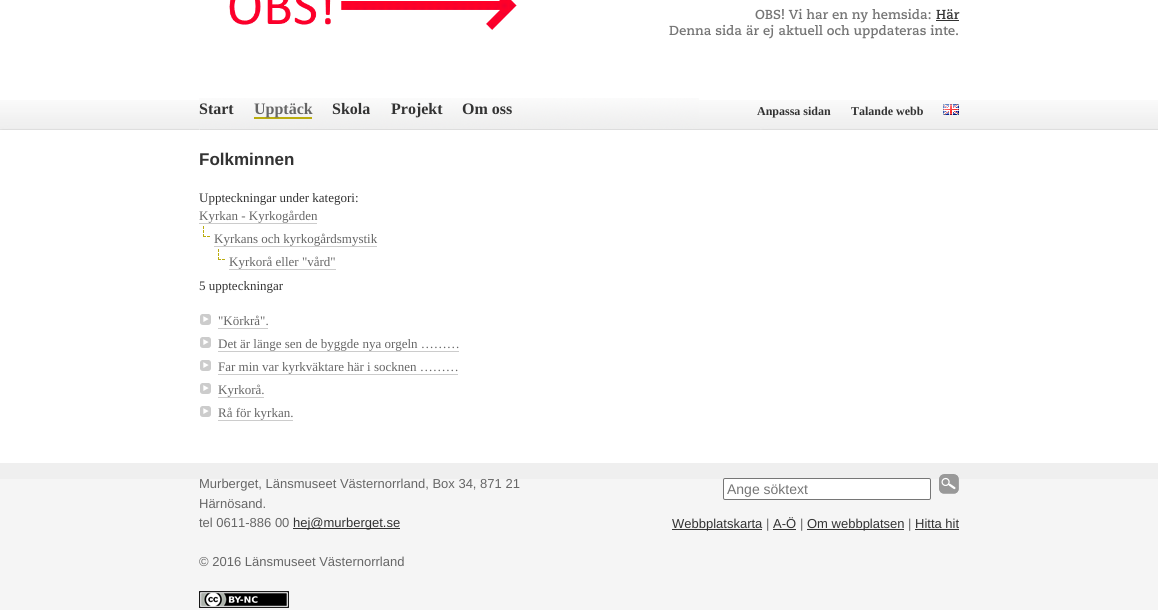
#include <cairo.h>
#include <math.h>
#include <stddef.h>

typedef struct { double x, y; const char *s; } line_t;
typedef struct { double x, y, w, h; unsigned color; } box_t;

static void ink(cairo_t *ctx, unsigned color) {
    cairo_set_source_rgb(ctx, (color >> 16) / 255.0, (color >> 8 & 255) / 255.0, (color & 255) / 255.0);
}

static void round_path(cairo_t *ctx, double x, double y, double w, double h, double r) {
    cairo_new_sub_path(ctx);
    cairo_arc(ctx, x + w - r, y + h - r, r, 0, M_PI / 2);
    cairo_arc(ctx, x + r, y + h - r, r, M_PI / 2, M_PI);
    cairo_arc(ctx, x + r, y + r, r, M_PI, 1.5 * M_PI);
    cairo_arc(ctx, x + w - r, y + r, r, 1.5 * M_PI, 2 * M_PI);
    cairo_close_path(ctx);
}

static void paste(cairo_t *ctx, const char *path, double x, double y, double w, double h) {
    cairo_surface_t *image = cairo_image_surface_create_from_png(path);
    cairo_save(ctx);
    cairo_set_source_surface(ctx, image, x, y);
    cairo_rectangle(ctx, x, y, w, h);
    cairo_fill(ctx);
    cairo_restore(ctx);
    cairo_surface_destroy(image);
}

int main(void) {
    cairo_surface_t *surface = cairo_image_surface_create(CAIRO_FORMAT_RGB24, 1158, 610);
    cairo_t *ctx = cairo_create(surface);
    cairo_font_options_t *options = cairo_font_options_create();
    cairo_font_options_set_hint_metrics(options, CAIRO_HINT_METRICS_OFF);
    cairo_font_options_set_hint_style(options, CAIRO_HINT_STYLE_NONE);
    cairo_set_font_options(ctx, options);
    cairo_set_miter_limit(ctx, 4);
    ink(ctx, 0xFFFFFF);
    cairo_paint(ctx);
    paste(ctx, "media/1.png", 0, 100, 1158, 30);
    paste(ctx, "media/2.png", 229, 0, 288, 30);
    paste(ctx, "media/3.png", 755, 8, 176, 15);
    paste(ctx, "media/4.png", 936, 9, 24, 11);
    ink(ctx, 0x333333);
    cairo_rectangle(ctx, 936, 20, 23, 1);
    cairo_fill(ctx);
    paste(ctx, "media/5.png", 669, 24, 289, 15);
    paste(ctx, "media/6.png", 199, 98, 500, 32);
    cairo_select_font_face(ctx, "Liberation Serif", CAIRO_FONT_SLANT_NORMAL, CAIRO_FONT_WEIGHT_BOLD);
    cairo_set_font_size(ctx, 16);
    cairo_move_to(ctx, 199, 114);
    cairo_show_text(ctx, "Start");
    ink(ctx, 0xBAAD0E);
    cairo_rectangle(ctx, 254, 117, 58, 2);
    cairo_fill(ctx);
    ink(ctx, 0x666666);
    cairo_move_to(ctx, 254, 114);
    cairo_show_text(ctx, "Upptäck");
    ink(ctx, 0x333333);
    {
        static const line_t items[] = {
            {332, 114, "Skola"},
            {391, 114, "Projekt"},
            {462, 114, "Om oss"},
        };
        for (size_t i = 0; i < sizeof items / sizeof *items; i++) {
            cairo_move_to(ctx, items[i].x, items[i].y);
            cairo_show_text(ctx, items[i].s);
        }
    }
    cairo_set_font_size(ctx, 12);
    cairo_move_to(ctx, 757, 115);
    cairo_show_text(ctx, "Anpassa sidan");
    cairo_move_to(ctx, 851, 115);
    cairo_show_text(ctx, "Talande webb");
    paste(ctx, "media/7.png", 943, 104, 16, 11);
    cairo_select_font_face(ctx, "Liberation Sans", CAIRO_FONT_SLANT_NORMAL, CAIRO_FONT_WEIGHT_BOLD);
    cairo_set_font_size(ctx, 17);
    cairo_move_to(ctx, 199, 165);
    cairo_show_text(ctx, "Folkminnen");
    cairo_select_font_face(ctx, "Liberation Serif", CAIRO_FONT_SLANT_NORMAL, CAIRO_FONT_WEIGHT_NORMAL);
    cairo_set_font_size(ctx, 13);
    cairo_move_to(ctx, 199, 202);
    cairo_show_text(ctx, "Uppteckningar under kategori:");
    ink(ctx, 0x666666);
    cairo_move_to(ctx, 199, 220);
    cairo_show_text(ctx, "Kyrkan - Kyrkogården");
    ink(ctx, 0xCCCCCC);
    cairo_rectangle(ctx, 199, 223, 118, 1);
    cairo_fill(ctx);
    paste(ctx, "media/8.png", 203, 226, 7, 11);
    ink(ctx, 0x666666);
    cairo_move_to(ctx, 214, 243);
    cairo_show_text(ctx, "Kyrkans och kyrkogårdsmystik");
    ink(ctx, 0xCCCCCC);
    cairo_rectangle(ctx, 214, 246, 163, 1);
    cairo_fill(ctx);
    paste(ctx, "media/8.png", 218, 249, 7, 11);
    ink(ctx, 0x666666);
    cairo_move_to(ctx, 229, 266);
    cairo_show_text(ctx, "Kyrkorå eller \"vård\"");
    ink(ctx, 0xCCCCCC);
    cairo_rectangle(ctx, 229, 269, 107, 1);
    cairo_fill(ctx);
    ink(ctx, 0x333333);
    cairo_move_to(ctx, 199, 290);
    cairo_show_text(ctx, "5 uppteckningar");
    paste(ctx, "media/9.png", 200, 314, 11, 11);
    ink(ctx, 0x666666);
    cairo_move_to(ctx, 218, 325);
    cairo_show_text(ctx, "\"Körkrå\".");
    ink(ctx, 0xCCCCCC);
    cairo_rectangle(ctx, 218, 328, 50, 1);
    cairo_fill(ctx);
    paste(ctx, "media/9.png", 200, 337, 11, 11);
    ink(ctx, 0x666666);
    cairo_move_to(ctx, 218, 348);
    cairo_show_text(ctx, "Det är länge sen de byggde nya orgeln ………");
    ink(ctx, 0xCCCCCC);
    cairo_rectangle(ctx, 218, 351, 241, 1);
    cairo_fill(ctx);
    paste(ctx, "media/9.png", 200, 360, 11, 11);
    ink(ctx, 0x666666);
    cairo_move_to(ctx, 218, 371);
    cairo_show_text(ctx, "Far min var kyrkväktare här i socknen ………");
    ink(ctx, 0xCCCCCC);
    cairo_rectangle(ctx, 218, 374, 240, 1);
    cairo_fill(ctx);
    paste(ctx, "media/9.png", 200, 383, 11, 11);
    ink(ctx, 0x666666);
    cairo_move_to(ctx, 218, 394);
    cairo_show_text(ctx, "Kyrkorå.");
    ink(ctx, 0xCCCCCC);
    cairo_rectangle(ctx, 218, 397, 46, 1);
    cairo_fill(ctx);
    paste(ctx, "media/9.png", 200, 406, 11, 11);
    ink(ctx, 0x666666);
    cairo_move_to(ctx, 218, 417);
    cairo_show_text(ctx, "Rå för kyrkan.");
    {
        static const box_t items[] = {
            {218, 420, 75, 1, 0xCCCCCC},
            {0, 479, 1158, 131, 0xF5F5F5},
            {0, 463, 1158, 16, 0xEFEFEF},
        };
        for (size_t i = 0; i < sizeof items / sizeof *items; i++) {
            ink(ctx, items[i].color);
            cairo_rectangle(ctx, items[i].x, items[i].y, items[i].w, items[i].h);
            cairo_fill(ctx);
        }
    }
    cairo_select_font_face(ctx, "Liberation Sans", CAIRO_FONT_SLANT_NORMAL, CAIRO_FONT_WEIGHT_NORMAL);
    ink(ctx, 0x666666);
    {
        static const line_t items[] = {
            {199, 488, "Murberget, Länsmuseet Västernorrland, Box 34, 871 21"},
            {199, 508, "Härnösand."},
            {199, 527, "tel 0611-886 00"},
        };
        for (size_t i = 0; i < sizeof items / sizeof *items; i++) {
            cairo_move_to(ctx, items[i].x, items[i].y);
            cairo_show_text(ctx, items[i].s);
        }
    }
    ink(ctx, 0x333333);
    cairo_rectangle(ctx, 293, 528, 107, 1);
    cairo_fill(ctx);
    cairo_move_to(ctx, 293, 527);
    cairo_show_text(ctx, "hej@murberget.se");
    ink(ctx, 0x666666);
    cairo_move_to(ctx, 199, 566);
    cairo_show_text(ctx, "© 2016 Länsmuseet Västernorrland");
    paste(ctx, "media/10.png", 199, 591, 90, 17);
    ink(ctx, 0xFFFFFF);
    round_path(ctx, 723.5, 478.5, 207, 21, 1.5);
    cairo_fill_preserve(ctx);
    ink(ctx, 0x767676);
    cairo_set_line_width(ctx, 1);
    cairo_stroke(ctx);
    cairo_set_font_size(ctx, 14);
    ink(ctx, 0x757575);
    cairo_move_to(ctx, 727, 494);
    cairo_show_text(ctx, "Ange söktext");
    paste(ctx, "media/11.png", 939, 474, 20, 20);
    ink(ctx, 0x333333);
    cairo_rectangle(ctx, 672, 529, 90, 1);
    cairo_fill(ctx);
    cairo_set_font_size(ctx, 13);
    cairo_move_to(ctx, 672, 528);
    cairo_show_text(ctx, "Webbplatskarta");
    ink(ctx, 0x666666);
    cairo_move_to(ctx, 766, 528);
    cairo_show_text(ctx, "|");
    ink(ctx, 0x333333);
    cairo_move_to(ctx, 773, 528);
    cairo_show_text(ctx, "A-Ö");
    cairo_rectangle(ctx, 773, 529, 23, 1);
    cairo_fill(ctx);
    ink(ctx, 0x666666);
    cairo_move_to(ctx, 800, 528);
    cairo_show_text(ctx, "|");
    ink(ctx, 0x333333);
    cairo_rectangle(ctx, 807, 529, 97, 1);
    cairo_fill(ctx);
    cairo_move_to(ctx, 807, 528);
    cairo_show_text(ctx, "Om webbplatsen");
    ink(ctx, 0x666666);
    cairo_move_to(ctx, 908, 528);
    cairo_show_text(ctx, "|");
    ink(ctx, 0x333333);
    cairo_move_to(ctx, 915, 528);
    cairo_show_text(ctx, "Hitta hit");
    cairo_rectangle(ctx, 915, 529, 44, 1);
    cairo_fill(ctx);
    cairo_surface_write_to_png(surface, "image.png");
    cairo_font_options_destroy(options);
    cairo_destroy(ctx);
    cairo_surface_destroy(surface);
    return 0;
}
